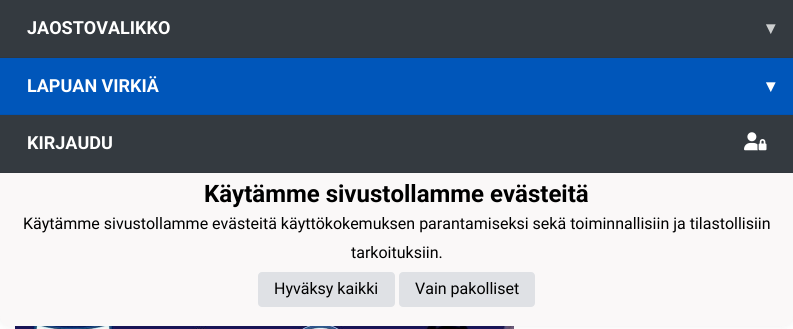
#include <cairo.h>
#include <math.h>
#include <stddef.h>


static void ink(cairo_t *ctx, unsigned color) {
    cairo_set_source_rgb(ctx, (color >> 16) / 255.0, (color >> 8 & 255) / 255.0, (color & 255) / 255.0);
}

static void round_path(cairo_t *ctx, double x, double y, double w, double h, double r) {
    cairo_new_sub_path(ctx);
    cairo_arc(ctx, x + w - r, y + h - r, r, 0, M_PI / 2);
    cairo_arc(ctx, x + r, y + h - r, r, M_PI / 2, M_PI);
    cairo_arc(ctx, x + r, y + r, r, M_PI, 1.5 * M_PI);
    cairo_arc(ctx, x + w - r, y + r, r, 1.5 * M_PI, 2 * M_PI);
    cairo_close_path(ctx);
}

static void blur_box(cairo_t *ctx, double x, double y, double w, double h, double r, double blur, double alpha) {
    cairo_push_group_with_content(ctx, CAIRO_CONTENT_ALPHA);
    cairo_set_operator(ctx, CAIRO_OPERATOR_SOURCE);
    for (int i = 15; i >= -15 && fmin(w, h) + blur * i / 3 > 0; i -= 2) {
        double e = blur * i / 6;
        cairo_set_source_rgba(ctx, 0, 0, 0, alpha * erfc((i - 1) / 8.5) / 2);
        round_path(ctx, x - e, y - e, w + 2 * e, h + 2 * e, fmax(0, fmin(r + e + blur * .6, fmin(w, h) / 2 + e)));
        cairo_fill(ctx);
    }
    cairo_pattern_t *soft = cairo_pop_group(ctx);
    cairo_mask(ctx, soft);
    cairo_pattern_destroy(soft);
}

static void paste(cairo_t *ctx, const char *path, double x, double y, double w, double h) {
    cairo_surface_t *image = cairo_image_surface_create_from_png(path);
    cairo_save(ctx);
    cairo_set_source_surface(ctx, image, x, y);
    cairo_rectangle(ctx, x, y, w, h);
    cairo_fill(ctx);
    cairo_restore(ctx);
    cairo_surface_destroy(image);
}

int main(void) {
    cairo_surface_t *surface = cairo_image_surface_create(CAIRO_FORMAT_RGB24, 793, 329);
    cairo_t *ctx = cairo_create(surface);
    cairo_font_options_t *options = cairo_font_options_create();
    cairo_font_options_set_hint_metrics(options, CAIRO_HINT_METRICS_OFF);
    cairo_font_options_set_hint_style(options, CAIRO_HINT_STYLE_NONE);
    cairo_set_font_options(ctx, options);
    cairo_set_miter_limit(ctx, 4);
    ink(ctx, 0xFFFFFF);
    cairo_paint(ctx);
    ink(ctx, 0x343A40);
    cairo_rectangle(ctx, 0, 0, 793, 57);
    cairo_fill(ctx);
    ink(ctx, 0x31373D);
    cairo_rectangle(ctx, 0, 57, 793, 1);
    cairo_fill(ctx);
    cairo_select_font_face(ctx, "Roboto", CAIRO_FONT_SLANT_NORMAL, CAIRO_FONT_WEIGHT_BOLD);
    cairo_set_font_size(ctx, 18);
    ink(ctx, 0xFFFFFF);
    cairo_move_to(ctx, 27, 34);
    cairo_show_text(ctx, "JAOSTOVALIKKO");
    cairo_select_font_face(ctx, "DejaVu Sans", CAIRO_FONT_SLANT_NORMAL, CAIRO_FONT_WEIGHT_BOLD);
    ink(ctx, 0xCCCECF);
    cairo_move_to(ctx, 766, 34);
    cairo_show_text(ctx, "▾");
    ink(ctx, 0x0056BA);
    cairo_rectangle(ctx, 0, 58, 793, 56);
    cairo_fill(ctx);
    ink(ctx, 0x0052B1);
    cairo_rectangle(ctx, 0, 114, 793, 1);
    cairo_fill(ctx);
    cairo_select_font_face(ctx, "Roboto", CAIRO_FONT_SLANT_NORMAL, CAIRO_FONT_WEIGHT_BOLD);
    ink(ctx, 0xFFFFFF);
    cairo_move_to(ctx, 27, 92);
    cairo_show_text(ctx, "LAPUAN VIRKIÄ");
    cairo_select_font_face(ctx, "DejaVu Sans", CAIRO_FONT_SLANT_NORMAL, CAIRO_FONT_WEIGHT_BOLD);
    cairo_move_to(ctx, 766, 92);
    cairo_show_text(ctx, "▾");
    paste(ctx, "media/2.png", 15, 326, 499, 3);
    ink(ctx, 0x000000);
    blur_box(ctx, 0, 163, 793, 161, 10, 5, 0.1);
    ink(ctx, 0xFAF8F8);
    round_path(ctx, 0, 165, 793, 161, 10);
    cairo_fill(ctx);
    ink(ctx, 0x343A40);
    cairo_rectangle(ctx, 0, 115, 793, 57);
    cairo_fill(ctx);
    ink(ctx, 0x31373D);
    cairo_rectangle(ctx, 0, 172, 793, 1);
    cairo_fill(ctx);
    cairo_select_font_face(ctx, "Roboto", CAIRO_FONT_SLANT_NORMAL, CAIRO_FONT_WEIGHT_BOLD);
    ink(ctx, 0xFFFFFF);
    cairo_move_to(ctx, 27, 149);
    cairo_show_text(ctx, "KIRJAUDU");
    paste(ctx, "media/1.png", 744, 132, 23, 19);
    cairo_set_font_size(ctx, 24);
    ink(ctx, 0x000000);
    cairo_move_to(ctx, 204, 202);
    cairo_show_text(ctx, "Käytämme sivustollamme evästeitä");
    cairo_select_font_face(ctx, "Roboto", CAIRO_FONT_SLANT_NORMAL, CAIRO_FONT_WEIGHT_NORMAL);
    cairo_set_font_size(ctx, 16);
    cairo_move_to(ctx, 23, 229);
    cairo_show_text(ctx, "Käytämme sivustollamme evästeitä käyttökokemuksen parantamiseksi sekä toiminnallisiin ja tilastollisiin");
    cairo_move_to(ctx, 351, 258);
    cairo_show_text(ctx, "tarkoituksiin.");
    ink(ctx, 0xDFE1E5);
    round_path(ctx, 258, 272, 137, 35, 4);
    cairo_fill(ctx);
    ink(ctx, 0x000000);
    cairo_move_to(ctx, 274, 294);
    cairo_show_text(ctx, "Hyväksy kaikki");
    ink(ctx, 0xDFE1E5);
    round_path(ctx, 399, 272, 136, 35, 4);
    cairo_fill(ctx);
    ink(ctx, 0x000000);
    cairo_move_to(ctx, 415, 294);
    cairo_show_text(ctx, "Vain pakolliset");
    cairo_surface_write_to_png(surface, "image.png");
    cairo_font_options_destroy(options);
    cairo_destroy(ctx);
    cairo_surface_destroy(surface);
    return 0;
}
